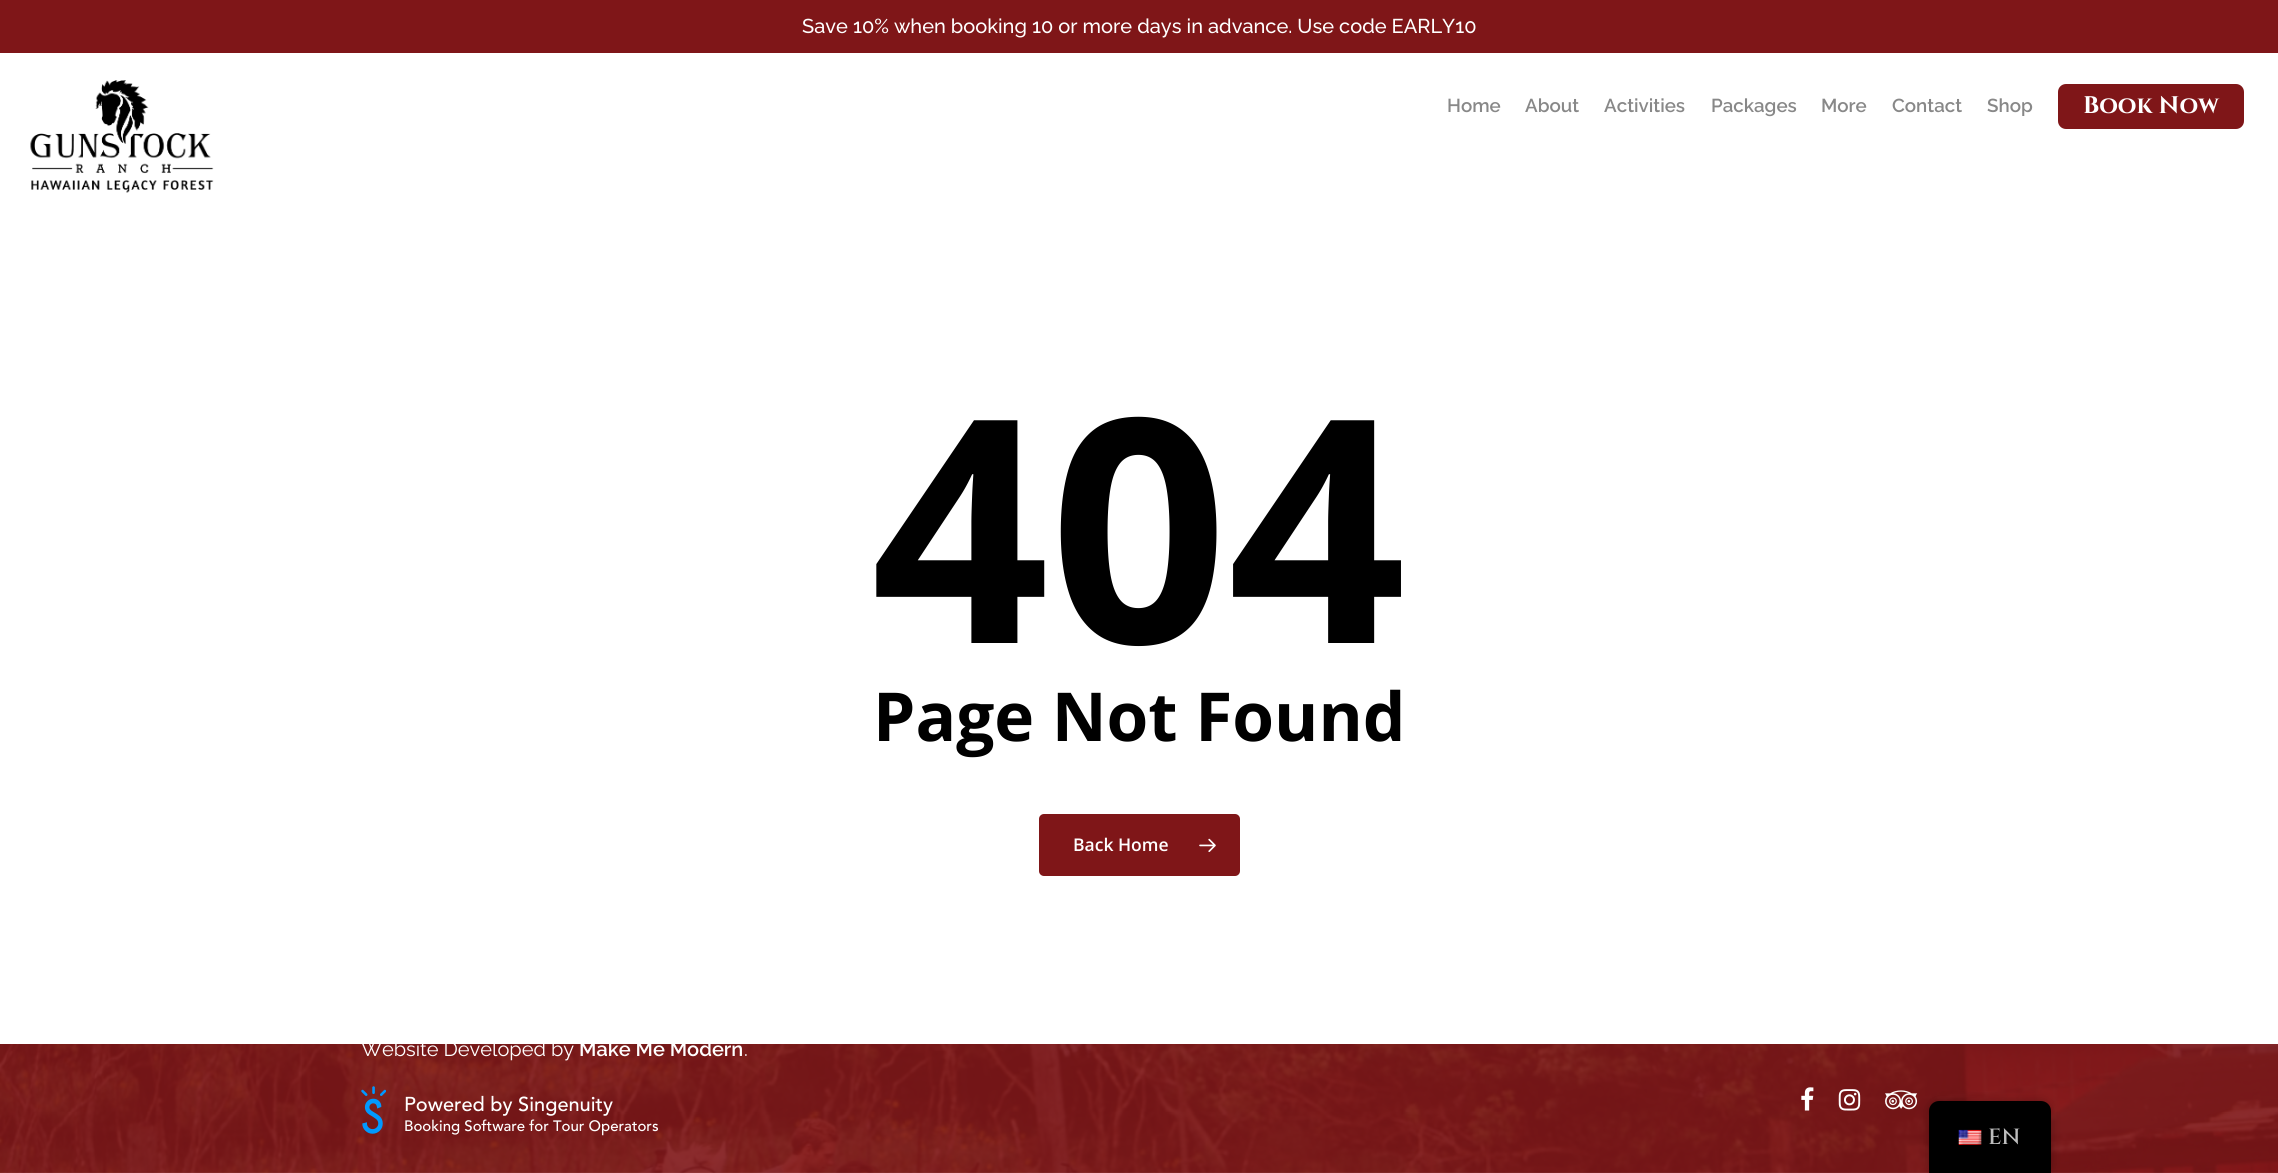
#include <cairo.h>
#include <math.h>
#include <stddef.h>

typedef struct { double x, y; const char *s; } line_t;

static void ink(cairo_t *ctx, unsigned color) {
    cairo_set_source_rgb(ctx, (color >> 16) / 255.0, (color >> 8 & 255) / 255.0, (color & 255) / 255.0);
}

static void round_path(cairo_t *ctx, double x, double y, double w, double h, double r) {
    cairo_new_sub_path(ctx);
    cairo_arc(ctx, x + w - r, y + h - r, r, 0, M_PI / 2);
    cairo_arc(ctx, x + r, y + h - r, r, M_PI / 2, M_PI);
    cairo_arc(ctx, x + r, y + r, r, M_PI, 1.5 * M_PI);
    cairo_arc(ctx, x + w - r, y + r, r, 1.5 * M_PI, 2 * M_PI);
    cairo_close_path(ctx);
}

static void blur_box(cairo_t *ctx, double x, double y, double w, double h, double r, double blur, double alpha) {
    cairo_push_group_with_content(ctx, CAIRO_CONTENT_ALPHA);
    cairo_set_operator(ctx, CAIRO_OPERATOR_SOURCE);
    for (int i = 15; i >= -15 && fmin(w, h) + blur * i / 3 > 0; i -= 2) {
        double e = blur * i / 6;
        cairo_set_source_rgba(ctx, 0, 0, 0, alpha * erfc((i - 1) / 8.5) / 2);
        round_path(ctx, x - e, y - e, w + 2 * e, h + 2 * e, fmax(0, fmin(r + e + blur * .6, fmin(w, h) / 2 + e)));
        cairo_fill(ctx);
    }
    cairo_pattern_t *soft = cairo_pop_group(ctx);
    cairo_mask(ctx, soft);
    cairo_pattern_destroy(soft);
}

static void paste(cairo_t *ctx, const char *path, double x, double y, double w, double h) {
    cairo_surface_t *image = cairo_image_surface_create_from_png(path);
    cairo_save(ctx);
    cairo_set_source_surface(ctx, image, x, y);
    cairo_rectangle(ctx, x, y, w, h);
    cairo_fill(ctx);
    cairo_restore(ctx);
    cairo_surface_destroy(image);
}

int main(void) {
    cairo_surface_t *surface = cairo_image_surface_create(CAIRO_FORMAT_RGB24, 2278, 1173);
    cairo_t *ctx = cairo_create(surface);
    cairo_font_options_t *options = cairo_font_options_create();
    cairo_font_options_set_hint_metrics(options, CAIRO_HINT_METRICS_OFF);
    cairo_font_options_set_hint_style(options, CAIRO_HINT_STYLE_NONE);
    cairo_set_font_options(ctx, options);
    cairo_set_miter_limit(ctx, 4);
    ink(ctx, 0xFFFFFF);
    cairo_paint(ctx);
    ink(ctx, 0x7F1618);
    cairo_rectangle(ctx, 0, 0, 2278, 53);
    cairo_fill(ctx);
    cairo_select_font_face(ctx, "Raleway Medium", CAIRO_FONT_SLANT_NORMAL, CAIRO_FONT_WEIGHT_NORMAL);
    cairo_set_font_size(ctx, 20);
    ink(ctx, 0xFFFFFF);
    cairo_move_to(ctx, 802, 33);
    cairo_show_text(ctx, "Save 10% when booking 10 or more days in advance. Use code EARLY10");
    paste(ctx, "media/1.png", 30, 80, 184, 113);
    cairo_select_font_face(ctx, "Raleway SemiBold", CAIRO_FONT_SLANT_NORMAL, CAIRO_FONT_WEIGHT_NORMAL);
    cairo_set_font_size(ctx, 18.75);
    ink(ctx, 0x888888);
    {
        static const line_t items[] = {
            {1447, 112, "Home"},
            {1525, 112, "About"},
            {1604, 112, "Activities"},
            {1711, 112, "Packages"},
            {1821, 112, "More"},
            {1892, 112, "Contact"},
            {1987, 112, "Shop"},
        };
        for (size_t i = 0; i < sizeof items / sizeof *items; i++) {
            cairo_move_to(ctx, items[i].x, items[i].y);
            cairo_show_text(ctx, items[i].s);
        }
    }
    ink(ctx, 0x7F1618);
    round_path(ctx, 2058, 84, 186, 45, 8);
    cairo_fill(ctx);
    cairo_select_font_face(ctx, "Cinzel", CAIRO_FONT_SLANT_NORMAL, CAIRO_FONT_WEIGHT_BOLD);
    cairo_set_font_size(ctx, 24);
    ink(ctx, 0xFFFFFF);
    cairo_move_to(ctx, 2083, 113);
    cairo_show_text(ctx, "Book Now");
    cairo_select_font_face(ctx, "Open Sans", CAIRO_FONT_SLANT_NORMAL, CAIRO_FONT_WEIGHT_BOLD);
    cairo_set_font_size(ctx, 312);
    ink(ctx, 0x000000);
    cairo_move_to(ctx, 871, 643);
    cairo_show_text(ctx, "404");
    cairo_set_font_size(ctx, 67.5);
    cairo_move_to(ctx, 873, 741);
    cairo_show_text(ctx, "Page Not Found");
    ink(ctx, 0x7F1618);
    round_path(ctx, 1039, 814, 201, 62, 5);
    cairo_fill(ctx);
    cairo_select_font_face(ctx, "Open Sans SemiBold", CAIRO_FONT_SLANT_NORMAL, CAIRO_FONT_WEIGHT_NORMAL);
    cairo_set_font_size(ctx, 17.5);
    ink(ctx, 0xFFFFFF);
    cairo_move_to(ctx, 1073, 851);
    cairo_show_text(ctx, "Back Home");
    paste(ctx, "media/2.png", 1199, 838, 17, 14);
    paste(ctx, "media/3.png", 0, 1044, 2278, 129);
    cairo_select_font_face(ctx, "Raleway", CAIRO_FONT_SLANT_NORMAL, CAIRO_FONT_WEIGHT_NORMAL);
    cairo_set_font_size(ctx, 20);
    cairo_move_to(ctx, 361, 1056);
    cairo_show_text(ctx, "Website Developed by");
    cairo_select_font_face(ctx, "Raleway SemiBold", CAIRO_FONT_SLANT_NORMAL, CAIRO_FONT_WEIGHT_NORMAL);
    cairo_move_to(ctx, 579, 1056);
    cairo_show_text(ctx, "Make Me Modern");
    cairo_select_font_face(ctx, "Raleway", CAIRO_FONT_SLANT_NORMAL, CAIRO_FONT_WEIGHT_NORMAL);
    cairo_move_to(ctx, 744, 1056);
    cairo_show_text(ctx, ".");
    paste(ctx, "media/4.png", 361, 1086, 25, 48);
    cairo_select_font_face(ctx, "Avenir Medium", CAIRO_FONT_SLANT_NORMAL, CAIRO_FONT_WEIGHT_NORMAL);
    cairo_move_to(ctx, 404, 1111);
    cairo_show_text(ctx, "Powered by Singenuity");
    cairo_set_font_size(ctx, 15);
    cairo_move_to(ctx, 404, 1131);
    cairo_show_text(ctx, "Booking Software for Tour Operators");
    paste(ctx, "media/5.png", 1801, 1087, 13, 24);
    paste(ctx, "media/6.png", 1838, 1089, 23, 22);
    paste(ctx, "media/7.png", 1885, 1090, 33, 20);
    ink(ctx, 0x000000);
    blur_box(ctx, 1929, 1101, 122, 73, 10, 5, 0.25);
    ink(ctx, 0x000000);
    cairo_new_path(ctx);
    cairo_move_to(ctx, 1939, 1101);
    cairo_line_to(ctx, 2041, 1101);
    cairo_curve_to(ctx, 2046.5, 1101, 2051, 1105.5, 2051, 1111);
    cairo_line_to(ctx, 2051, 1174);
    cairo_line_to(ctx, 1929, 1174);
    cairo_line_to(ctx, 1929, 1111);
    cairo_curve_to(ctx, 1929, 1105.5, 1933.5, 1101, 1939, 1101);
    cairo_close_path(ctx);
    cairo_fill(ctx);
    paste(ctx, "media/8.png", 1958, 1129, 24, 16);
    cairo_select_font_face(ctx, "Cinzel SemiBold", CAIRO_FONT_SLANT_NORMAL, CAIRO_FONT_WEIGHT_NORMAL);
    cairo_set_font_size(ctx, 22);
    ink(ctx, 0xBDBDBD);
    cairo_move_to(ctx, 1988, 1144);
    cairo_show_text(ctx, "EN");
    cairo_surface_write_to_png(surface, "image.png");
    cairo_font_options_destroy(options);
    cairo_destroy(ctx);
    cairo_surface_destroy(surface);
    return 0;
}
